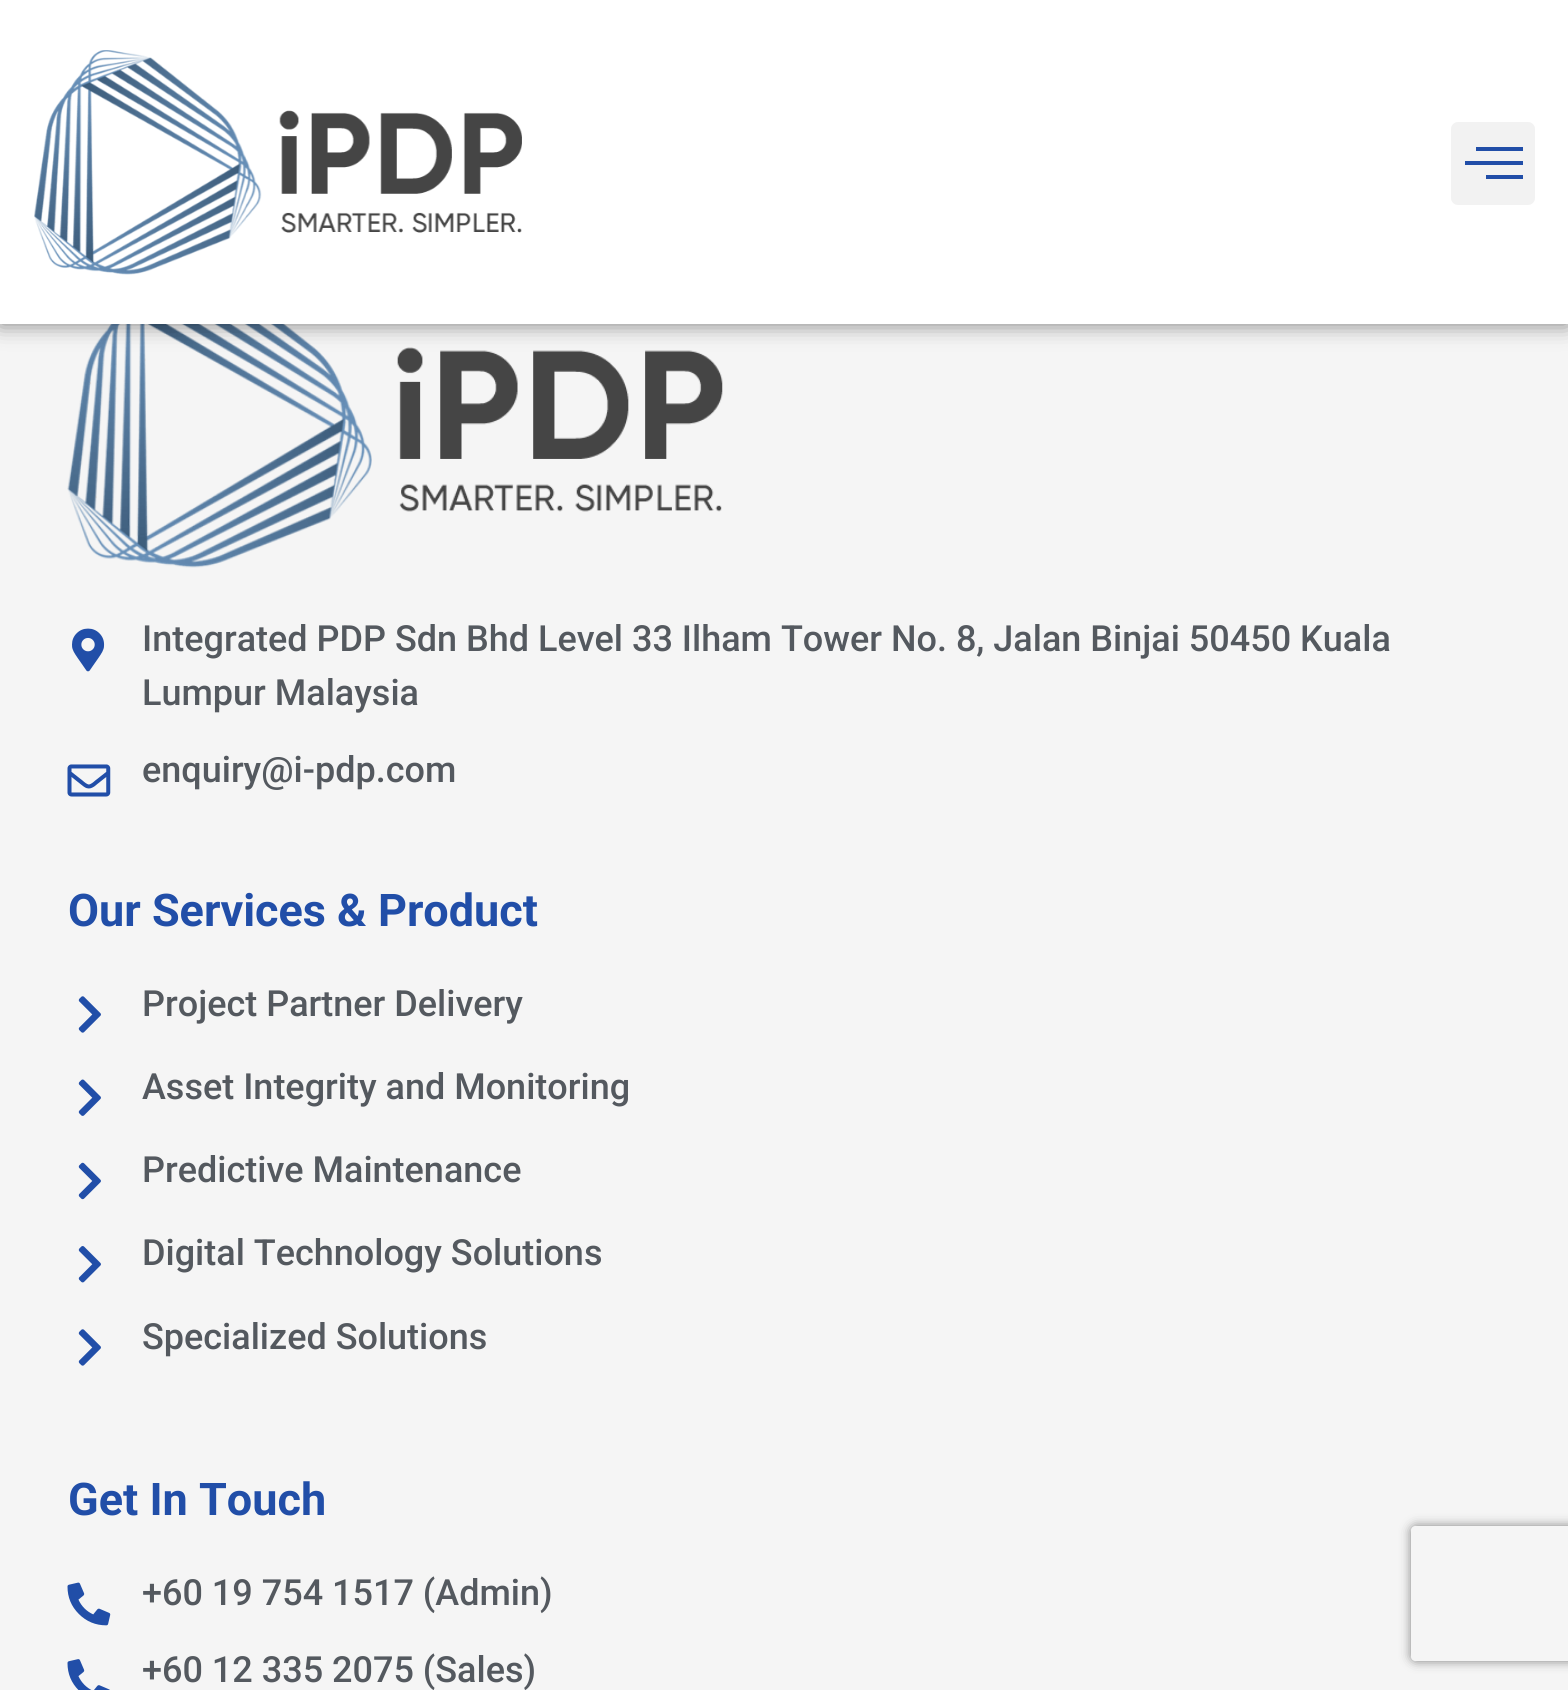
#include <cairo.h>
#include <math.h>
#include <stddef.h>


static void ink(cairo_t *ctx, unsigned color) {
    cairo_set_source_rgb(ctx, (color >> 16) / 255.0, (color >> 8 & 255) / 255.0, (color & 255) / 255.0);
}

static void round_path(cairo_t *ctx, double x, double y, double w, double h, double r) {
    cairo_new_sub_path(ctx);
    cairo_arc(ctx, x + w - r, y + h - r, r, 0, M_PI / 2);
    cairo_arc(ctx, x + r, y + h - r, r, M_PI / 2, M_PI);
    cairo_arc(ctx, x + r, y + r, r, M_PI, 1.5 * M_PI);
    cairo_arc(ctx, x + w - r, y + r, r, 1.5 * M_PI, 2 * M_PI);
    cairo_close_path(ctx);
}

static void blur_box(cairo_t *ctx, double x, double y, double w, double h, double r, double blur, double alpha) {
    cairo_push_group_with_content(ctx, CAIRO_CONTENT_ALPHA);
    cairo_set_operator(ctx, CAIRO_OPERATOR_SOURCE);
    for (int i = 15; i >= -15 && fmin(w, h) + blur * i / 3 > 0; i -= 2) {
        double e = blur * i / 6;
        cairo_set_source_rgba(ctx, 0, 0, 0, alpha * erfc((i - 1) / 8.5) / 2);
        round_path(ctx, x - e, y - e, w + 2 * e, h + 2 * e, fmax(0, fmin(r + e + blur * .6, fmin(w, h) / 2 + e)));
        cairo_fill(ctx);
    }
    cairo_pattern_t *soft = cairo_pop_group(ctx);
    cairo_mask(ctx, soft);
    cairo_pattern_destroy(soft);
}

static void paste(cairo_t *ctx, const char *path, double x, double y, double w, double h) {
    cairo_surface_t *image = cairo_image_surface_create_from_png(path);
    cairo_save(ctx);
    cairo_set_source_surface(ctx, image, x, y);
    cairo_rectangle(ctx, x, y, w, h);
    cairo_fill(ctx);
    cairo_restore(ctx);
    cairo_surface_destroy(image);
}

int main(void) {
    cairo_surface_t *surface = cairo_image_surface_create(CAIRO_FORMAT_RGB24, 1568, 1690);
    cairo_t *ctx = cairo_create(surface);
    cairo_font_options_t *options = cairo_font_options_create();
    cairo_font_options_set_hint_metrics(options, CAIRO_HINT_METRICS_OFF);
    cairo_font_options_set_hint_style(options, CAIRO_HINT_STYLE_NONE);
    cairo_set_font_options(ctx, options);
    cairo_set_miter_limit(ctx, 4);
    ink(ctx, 0xF5F5F5);
    cairo_paint(ctx);
    paste(ctx, "media/2.png", 67, 324, 656, 244);
    ink(ctx, 0x000000);
    blur_box(ctx, 0, 0, 1568, 324, 0, 11, 0.5);
    ink(ctx, 0xFFFFFF);
    cairo_rectangle(ctx, 0, 0, 1568, 324);
    cairo_fill(ctx);
    paste(ctx, "media/1.png", 34, 50, 488, 225);
    ink(ctx, 0xF2F2F2);
    round_path(ctx, 1451, 122, 84, 83, 7);
    cairo_fill(ctx);
    ink(ctx, 0x214EA8);
    cairo_new_path(ctx);
    cairo_move_to(ctx, 1465, 165);
    cairo_line_to(ctx, 1523, 165);
    cairo_line_to(ctx, 1523, 161);
    cairo_line_to(ctx, 1465, 161);
    cairo_close_path(ctx);
    cairo_move_to(ctx, 1486, 179);
    cairo_line_to(ctx, 1523, 179);
    cairo_line_to(ctx, 1523, 175);
    cairo_line_to(ctx, 1486, 175);
    cairo_close_path(ctx);
    cairo_move_to(ctx, 1476, 147);
    cairo_line_to(ctx, 1476, 151);
    cairo_line_to(ctx, 1523, 151);
    cairo_line_to(ctx, 1523, 147);
    cairo_close_path(ctx);
    cairo_fill(ctx);
    paste(ctx, "media/3.png", 72, 628, 33, 44);
    cairo_select_font_face(ctx, "Roboto Medium", CAIRO_FONT_SLANT_NORMAL, CAIRO_FONT_WEIGHT_NORMAL);
    cairo_set_font_size(ctx, 36);
    ink(ctx, 0x54595F);
    cairo_move_to(ctx, 142, 651);
    cairo_show_text(ctx, "Integrated PDP Sdn Bhd Level 33 Ilham Tower No. 8, Jalan Binjai 50450 Kuala");
    cairo_move_to(ctx, 142, 705);
    cairo_show_text(ctx, "Lumpur Malaysia");
    paste(ctx, "media/4.png", 67, 764, 44, 33);
    cairo_move_to(ctx, 142, 782);
    cairo_show_text(ctx, "enquiry@i-pdp.com");
    cairo_select_font_face(ctx, "Roboto", CAIRO_FONT_SLANT_NORMAL, CAIRO_FONT_WEIGHT_BOLD);
    cairo_set_font_size(ctx, 45);
    ink(ctx, 0x214EA8);
    cairo_move_to(ctx, 68, 926);
    cairo_show_text(ctx, "Our Services & Product");
    paste(ctx, "media/5.png", 78, 996, 23, 37);
    cairo_select_font_face(ctx, "Roboto Medium", CAIRO_FONT_SLANT_NORMAL, CAIRO_FONT_WEIGHT_NORMAL);
    cairo_set_font_size(ctx, 36);
    ink(ctx, 0x54595F);
    cairo_move_to(ctx, 142, 1016);
    cairo_show_text(ctx, "Project Partner Delivery");
    paste(ctx, "media/6.png", 78, 1079, 23, 37);
    cairo_move_to(ctx, 142, 1099);
    cairo_show_text(ctx, "Asset Integrity and Monitoring");
    paste(ctx, "media/7.png", 78, 1162, 23, 38);
    cairo_move_to(ctx, 142, 1182);
    cairo_show_text(ctx, "Predictive Maintenance");
    paste(ctx, "media/8.png", 78, 1246, 23, 37);
    cairo_move_to(ctx, 142, 1265);
    cairo_show_text(ctx, "Digital Technology Solutions");
    paste(ctx, "media/5.png", 78, 1329, 23, 37);
    cairo_move_to(ctx, 142, 1349);
    cairo_show_text(ctx, "Specialized Solutions");
    cairo_select_font_face(ctx, "Roboto", CAIRO_FONT_SLANT_NORMAL, CAIRO_FONT_WEIGHT_BOLD);
    cairo_set_font_size(ctx, 45);
    ink(ctx, 0x214EA8);
    cairo_move_to(ctx, 68, 1515);
    cairo_show_text(ctx, "Get In Touch");
    paste(ctx, "media/9.png", 67, 1582, 44, 44);
    cairo_select_font_face(ctx, "Roboto Medium", CAIRO_FONT_SLANT_NORMAL, CAIRO_FONT_WEIGHT_NORMAL);
    cairo_set_font_size(ctx, 36);
    ink(ctx, 0x54595F);
    cairo_move_to(ctx, 142, 1605);
    cairo_show_text(ctx, "+60 19 754 1517 (Admin)");
    paste(ctx, "media/10.png", 67, 1659, 43, 31);
    cairo_move_to(ctx, 142, 1682);
    cairo_show_text(ctx, "+60 12 335 2075 (Sales)");
    cairo_save(ctx);
    cairo_set_fill_rule(ctx, CAIRO_FILL_RULE_EVEN_ODD);
    cairo_new_path(ctx);
    cairo_move_to(ctx, 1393, 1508);
    cairo_line_to(ctx, 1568, 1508);
    cairo_line_to(ctx, 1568, 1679);
    cairo_line_to(ctx, 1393, 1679);
    cairo_close_path(ctx);
    cairo_move_to(ctx, 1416, 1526);
    cairo_line_to(ctx, 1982, 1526);
    cairo_curve_to(ctx, 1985, 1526, 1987, 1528, 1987, 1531);
    cairo_line_to(ctx, 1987, 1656);
    cairo_curve_to(ctx, 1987, 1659, 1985, 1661, 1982, 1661);
    cairo_line_to(ctx, 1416, 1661);
    cairo_curve_to(ctx, 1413, 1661, 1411, 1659, 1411, 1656);
    cairo_line_to(ctx, 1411, 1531);
    cairo_curve_to(ctx, 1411, 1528, 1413, 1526, 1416, 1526);
    cairo_close_path(ctx);
    cairo_clip(ctx);
    ink(ctx, 0x808080);
    blur_box(ctx, 1411, 1526, 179, 135, 5, 5.5, 1);
    cairo_restore(ctx);
    cairo_surface_write_to_png(surface, "image.png");
    cairo_font_options_destroy(options);
    cairo_destroy(ctx);
    cairo_surface_destroy(surface);
    return 0;
}
